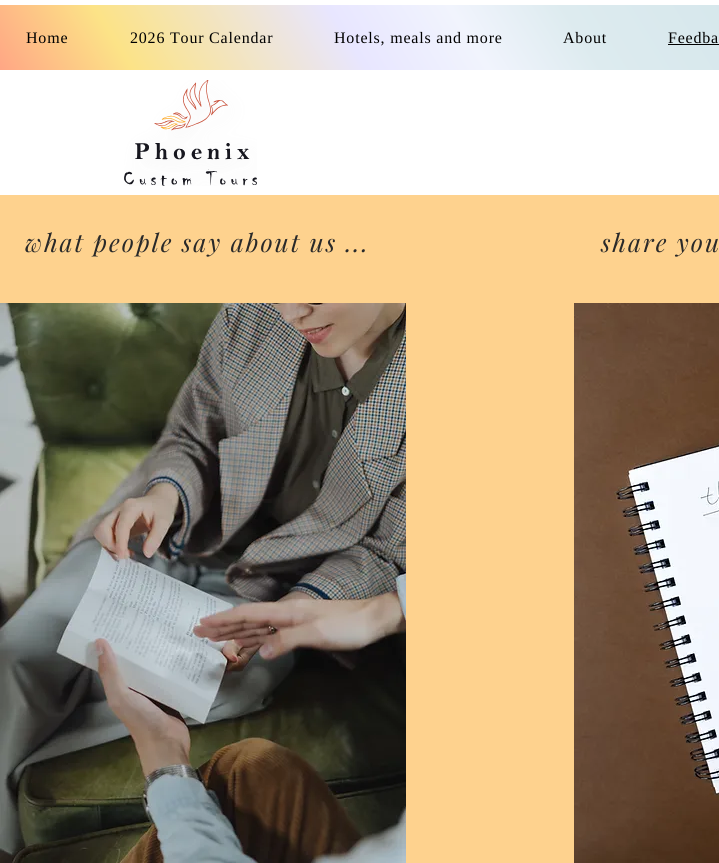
#include <cairo.h>
#include <math.h>
#include <stddef.h>

typedef struct { double x, y; const char *s; } line_t;

static void ink(cairo_t *ctx, unsigned color) {
    cairo_set_source_rgb(ctx, (color >> 16) / 255.0, (color >> 8 & 255) / 255.0, (color & 255) / 255.0);
}

static void write_spaced(cairo_t *ctx, double x, double y, const char *s, double letter, double word) {
    cairo_move_to(ctx, x, y);
    while (*s) {
        char ch[5] = {0};
        int n = 0;
        do ch[n++] = *s++; while ((*s & 0xC0) == 0x80);
        cairo_show_text(ctx, ch);
        cairo_rel_move_to(ctx, letter + word * (*ch == ' '), 0);
    }
}

static void paste(cairo_t *ctx, const char *path, double x, double y, double w, double h) {
    cairo_surface_t *image = cairo_image_surface_create_from_png(path);
    cairo_save(ctx);
    cairo_set_source_surface(ctx, image, x, y);
    cairo_rectangle(ctx, x, y, w, h);
    cairo_fill(ctx);
    cairo_restore(ctx);
    cairo_surface_destroy(image);
}

int main(void) {
    cairo_surface_t *surface = cairo_image_surface_create(CAIRO_FORMAT_RGB24, 719, 863);
    cairo_t *ctx = cairo_create(surface);
    cairo_font_options_t *options = cairo_font_options_create();
    cairo_font_options_set_hint_metrics(options, CAIRO_HINT_METRICS_OFF);
    cairo_font_options_set_hint_style(options, CAIRO_HINT_STYLE_NONE);
    cairo_set_font_options(ctx, options);
    cairo_set_miter_limit(ctx, 4);
    cairo_pattern_t *gradient;
    ink(ctx, 0xFED28E);
    cairo_paint(ctx);
    ink(ctx, 0xFFFFFF);
    cairo_rectangle(ctx, 0, 0, 719, 195);
    cairo_fill(ctx);
    gradient = cairo_pattern_create_linear(123, 267, 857, -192);
    cairo_pattern_add_color_stop_rgba(gradient, 0, 1, 0.651, 0.522, 1);
    cairo_pattern_add_color_stop_rgba(gradient, 0.13, 0.988, 0.89, 0.529, 1);
    cairo_pattern_add_color_stop_rgba(gradient, 0.36, 0.91, 0.902, 1, 1);
    cairo_pattern_add_color_stop_rgba(gradient, 0.48, 0.945, 0.957, 0.992, 1);
    cairo_pattern_add_color_stop_rgba(gradient, 0.59, 0.867, 0.922, 0.937, 1);
    cairo_pattern_add_color_stop_rgba(gradient, 0.76, 0.839, 0.906, 0.925, 1);
    cairo_pattern_add_color_stop_rgba(gradient, 0.86, 0.945, 0.941, 1, 1);
    cairo_pattern_add_color_stop_rgba(gradient, 0.99, 0.663, 0.647, 0.91, 1);
    cairo_set_source(ctx, gradient);
    cairo_pattern_destroy(gradient);
    cairo_rectangle(ctx, 0, 5, 719, 65);
    cairo_fill(ctx);
    cairo_select_font_face(ctx, "Liberation Serif", CAIRO_FONT_SLANT_NORMAL, CAIRO_FONT_WEIGHT_NORMAL);
    cairo_set_font_size(ctx, 16);
    ink(ctx, 0x000000);
    {
        static const line_t items[] = {
            {26, 43, "Home"},
            {130, 43, "2026 Tour Calendar"},
            {334, 43, "Hotels, meals and more"},
            {563, 43, "About"},
            {668, 43, "Feedba"},
        };
        for (size_t i = 0; i < sizeof items / sizeof *items; i++) {
            write_spaced(ctx, items[i].x, items[i].y, items[i].s, 0.8, 0);
        }
    }
    cairo_rectangle(ctx, 668, 44, 51, 1);
    cairo_fill(ctx);
    paste(ctx, "media/1.png", 124, 80, 133, 106);
    cairo_select_font_face(ctx, "Playfair Display", CAIRO_FONT_SLANT_ITALIC, CAIRO_FONT_WEIGHT_NORMAL);
    cairo_set_font_size(ctx, 25);
    ink(ctx, 0x292929);
    write_spaced(ctx, 25, 252, "what people say about us ...", 2, 0);
    write_spaced(ctx, 601, 252, "share you", 2, 0);
    paste(ctx, "media/2.png", 0, 303, 406, 560);
    paste(ctx, "media/3.png", 574, 303, 145, 560);
    cairo_surface_write_to_png(surface, "image.png");
    cairo_font_options_destroy(options);
    cairo_destroy(ctx);
    cairo_surface_destroy(surface);
    return 0;
}
